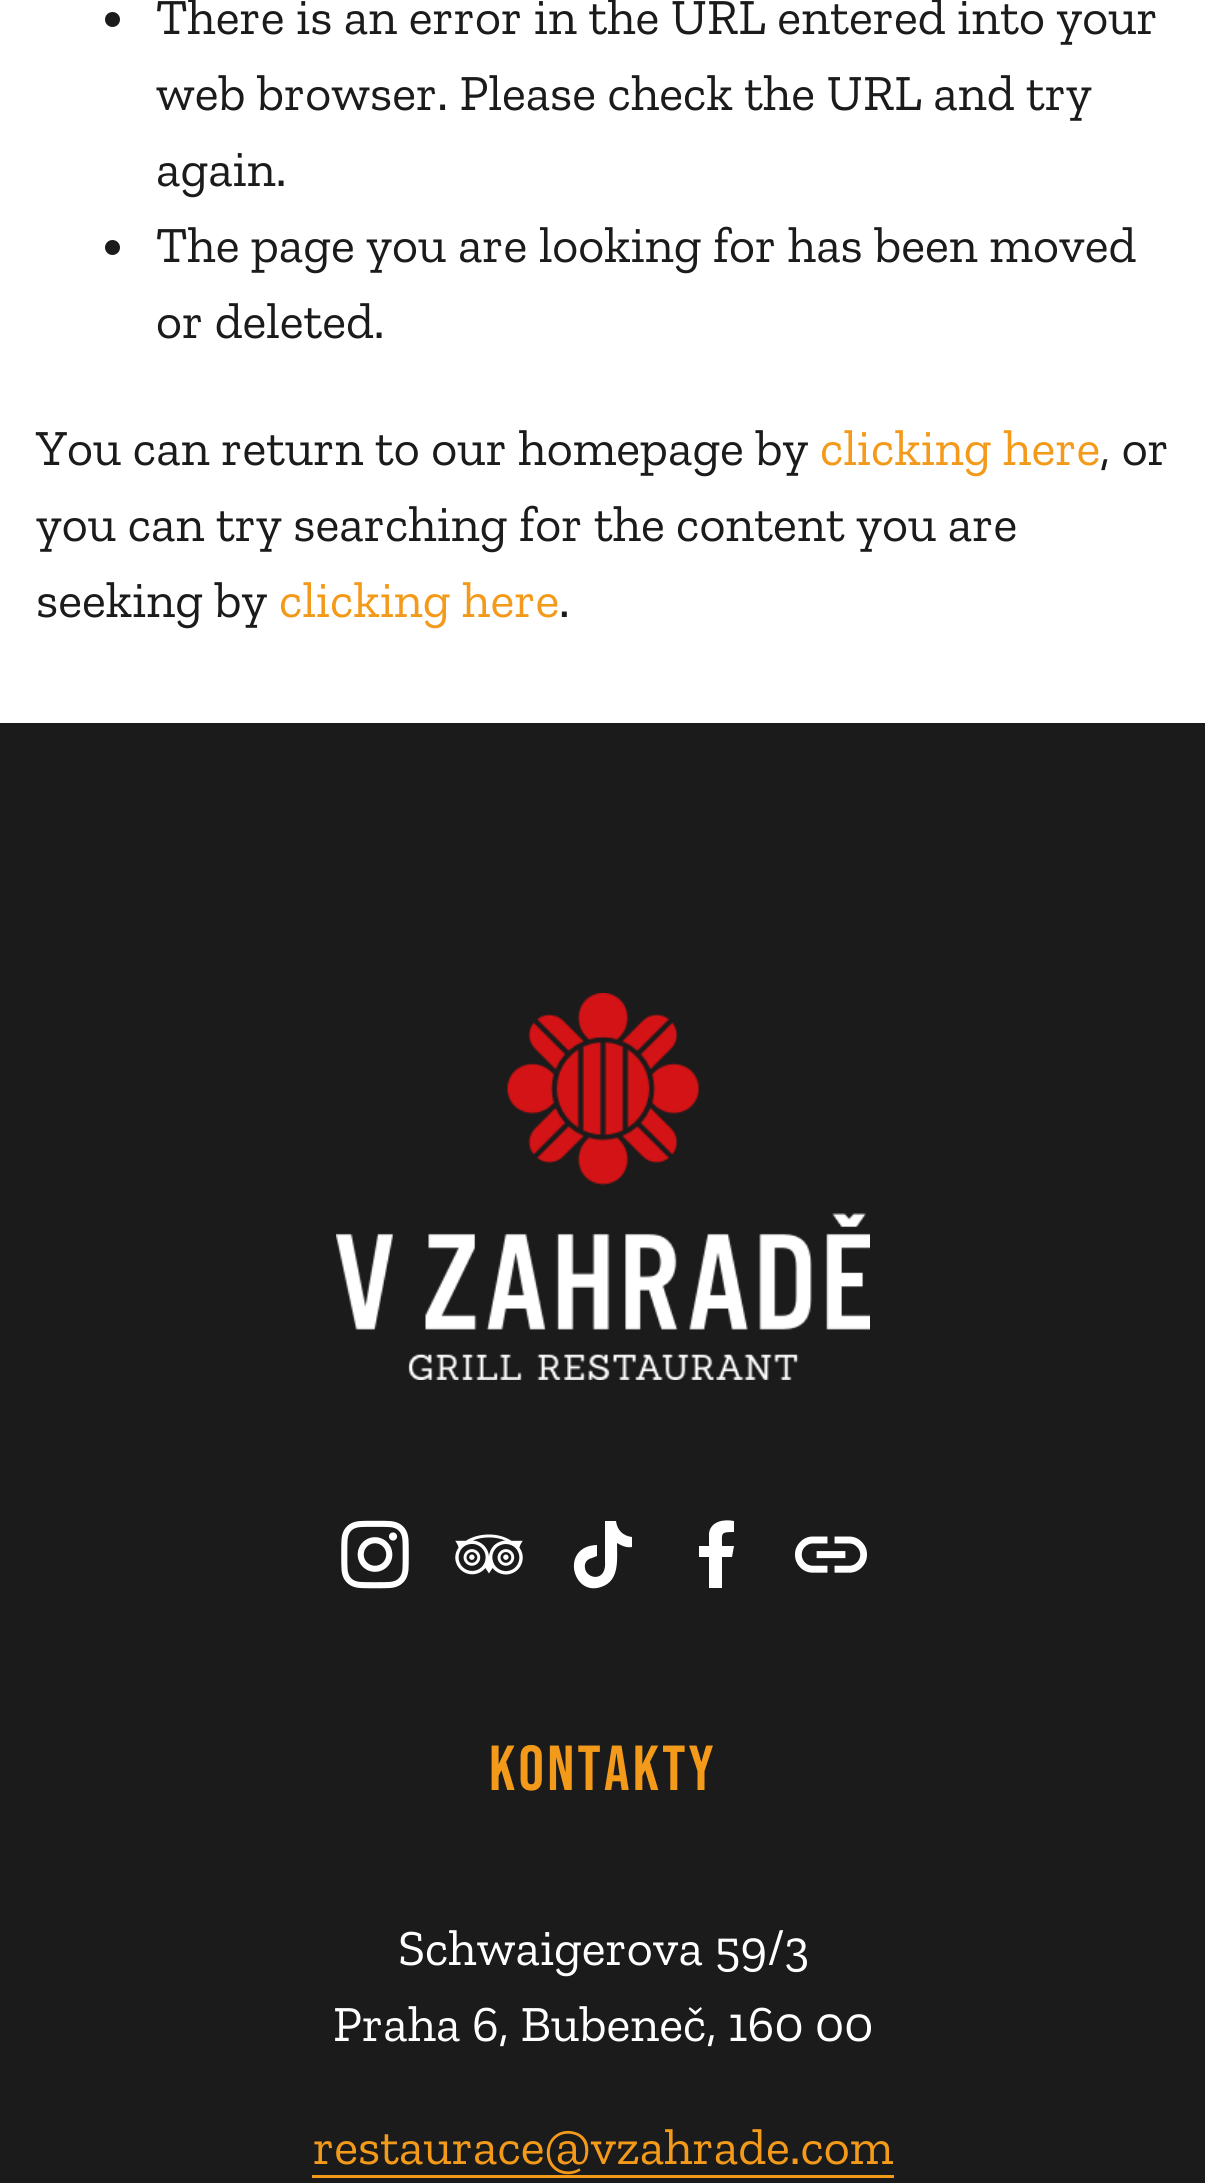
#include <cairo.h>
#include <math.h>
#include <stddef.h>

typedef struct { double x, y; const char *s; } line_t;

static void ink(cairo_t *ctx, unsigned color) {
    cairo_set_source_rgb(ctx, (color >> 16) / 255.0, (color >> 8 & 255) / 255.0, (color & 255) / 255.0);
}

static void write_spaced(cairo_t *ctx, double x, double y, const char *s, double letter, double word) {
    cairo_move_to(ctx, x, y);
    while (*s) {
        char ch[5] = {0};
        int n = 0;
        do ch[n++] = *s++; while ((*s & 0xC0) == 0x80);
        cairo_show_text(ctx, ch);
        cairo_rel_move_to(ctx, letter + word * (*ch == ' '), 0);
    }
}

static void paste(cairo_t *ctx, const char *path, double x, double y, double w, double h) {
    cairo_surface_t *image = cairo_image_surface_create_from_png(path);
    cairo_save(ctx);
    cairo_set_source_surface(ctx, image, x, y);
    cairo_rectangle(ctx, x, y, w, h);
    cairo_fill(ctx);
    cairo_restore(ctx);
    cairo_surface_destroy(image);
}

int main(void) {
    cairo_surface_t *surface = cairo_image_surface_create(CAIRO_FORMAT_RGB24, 1205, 2183);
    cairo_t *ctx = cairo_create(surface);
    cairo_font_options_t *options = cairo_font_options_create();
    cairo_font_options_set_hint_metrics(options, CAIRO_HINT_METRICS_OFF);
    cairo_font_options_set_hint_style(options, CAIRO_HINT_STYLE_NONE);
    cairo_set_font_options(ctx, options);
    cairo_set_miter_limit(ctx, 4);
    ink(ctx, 0xFFFFFF);
    cairo_paint(ctx);
    ink(ctx, 0x1B1B1B);
    cairo_arc(ctx, 112.5, 19.5, 7.5, 0, 2 * M_PI);
    cairo_fill(ctx);
    cairo_select_font_face(ctx, "Zilla Slab", CAIRO_FONT_SLANT_NORMAL, CAIRO_FONT_WEIGHT_NORMAL);
    cairo_set_font_size(ctx, 50.6);
    {
        static const line_t items[] = {
            {156, 34, "There is an error in the URL entered into your"},
            {156, 110, "web browser. Please check the URL and try"},
            {156, 186, "again."},
        };
        for (size_t i = 0; i < sizeof items / sizeof *items; i++) {
            cairo_move_to(ctx, items[i].x, items[i].y);
            cairo_show_text(ctx, items[i].s);
        }
    }
    cairo_new_path(ctx);
    cairo_arc(ctx, 112.5, 247.5, 7.5, 0, 2 * M_PI);
    cairo_fill(ctx);
    {
        static const line_t items[] = {
            {156, 262, "The page you are looking for has been moved"},
            {156, 338, "or deleted."},
            {36, 465, "You can return to our homepage by"},
        };
        for (size_t i = 0; i < sizeof items / sizeof *items; i++) {
            cairo_move_to(ctx, items[i].x, items[i].y);
            cairo_show_text(ctx, items[i].s);
        }
    }
    ink(ctx, 0xF49A1A);
    cairo_move_to(ctx, 820, 465);
    cairo_show_text(ctx, "clicking here");
    ink(ctx, 0x1B1B1B);
    {
        static const line_t items[] = {
            {1100, 465, ", or"},
            {36, 541, "you can try searching for the"},
            {676, 541, "content you are"},
            {36, 617, "seeking by"},
        };
        for (size_t i = 0; i < sizeof items / sizeof *items; i++) {
            cairo_move_to(ctx, items[i].x, items[i].y);
            cairo_show_text(ctx, items[i].s);
        }
    }
    ink(ctx, 0xF49A1A);
    cairo_move_to(ctx, 279, 617);
    cairo_show_text(ctx, "clicking here");
    ink(ctx, 0x1B1B1B);
    cairo_move_to(ctx, 559, 617);
    cairo_show_text(ctx, ".");
    cairo_rectangle(ctx, 0, 723, 1205, 1460);
    cairo_fill(ctx);
    paste(ctx, "media/1.png", 336, 993, 534, 387);
    paste(ctx, "media/2.png", 341, 1520, 68, 69);
    paste(ctx, "media/3.png", 455, 1534, 68, 41);
    ink(ctx, 0xFFFFFF);
    cairo_new_path(ctx);
    cairo_move_to(ctx, 616, 1521);
    cairo_curve_to(ctx, 617, 1530, 623, 1536, 632, 1537);
    cairo_line_to(ctx, 632, 1547);
    cairo_curve_to(ctx, 627, 1548, 622, 1546, 617, 1543);
    cairo_curve_to(ctx, 617, 1559, 620, 1581, 601, 1587);
    cairo_curve_to(ctx, 572, 1597, 560, 1546, 597, 1545);
    cairo_line_to(ctx, 597, 1556);
    cairo_line_to(ctx, 592, 1558);
    cairo_curve_to(ctx, 587, 1559, 584, 1563, 585, 1568);
    cairo_curve_to(ctx, 586, 1579, 607, 1583, 605, 1561);
    cairo_line_to(ctx, 605, 1521);
    cairo_close_path(ctx);
    cairo_fill(ctx);
    cairo_new_path(ctx);
    cairo_move_to(ctx, 722, 1588);
    cairo_line_to(ctx, 722, 1557);
    cairo_line_to(ctx, 732, 1557);
    cairo_line_to(ctx, 734, 1546);
    cairo_line_to(ctx, 722, 1546);
    cairo_curve_to(ctx, 722, 1533, 720, 1532, 734, 1532);
    cairo_line_to(ctx, 734, 1521);
    cairo_curve_to(ctx, 724, 1519, 711, 1521, 709, 1533);
    cairo_line_to(ctx, 709, 1546);
    cairo_line_to(ctx, 699, 1546);
    cairo_line_to(ctx, 699, 1557);
    cairo_line_to(ctx, 709, 1557);
    cairo_line_to(ctx, 709, 1588);
    cairo_close_path(ctx);
    cairo_fill(ctx);
    paste(ctx, "media/4.png", 795, 1536, 72, 37);
    cairo_select_font_face(ctx, "Bebas Neue", CAIRO_FONT_SLANT_NORMAL, CAIRO_FONT_WEIGHT_NORMAL);
    cairo_set_font_size(ctx, 63.5);
    ink(ctx, 0xF49A1A);
    write_spaced(ctx, 489, 1790, "Kontakty", 3.25, 0);
    cairo_select_font_face(ctx, "Zilla Slab", CAIRO_FONT_SLANT_NORMAL, CAIRO_FONT_WEIGHT_NORMAL);
    cairo_set_font_size(ctx, 50.6);
    ink(ctx, 0xFFFFFF);
    cairo_move_to(ctx, 398, 1965);
    cairo_show_text(ctx, "Schwaigerova 59/3");
    cairo_move_to(ctx, 333, 2041);
    cairo_show_text(ctx, "Praha 6, Bubeneč, 160 00");
    ink(ctx, 0xF49A1A);
    cairo_move_to(ctx, 313, 2164);
    cairo_show_text(ctx, "restaurace@vzahrade.com");
    cairo_rectangle(ctx, 312, 2175, 582, 3);
    cairo_fill(ctx);
    cairo_surface_write_to_png(surface, "image.png");
    cairo_font_options_destroy(options);
    cairo_destroy(ctx);
    cairo_surface_destroy(surface);
    return 0;
}
